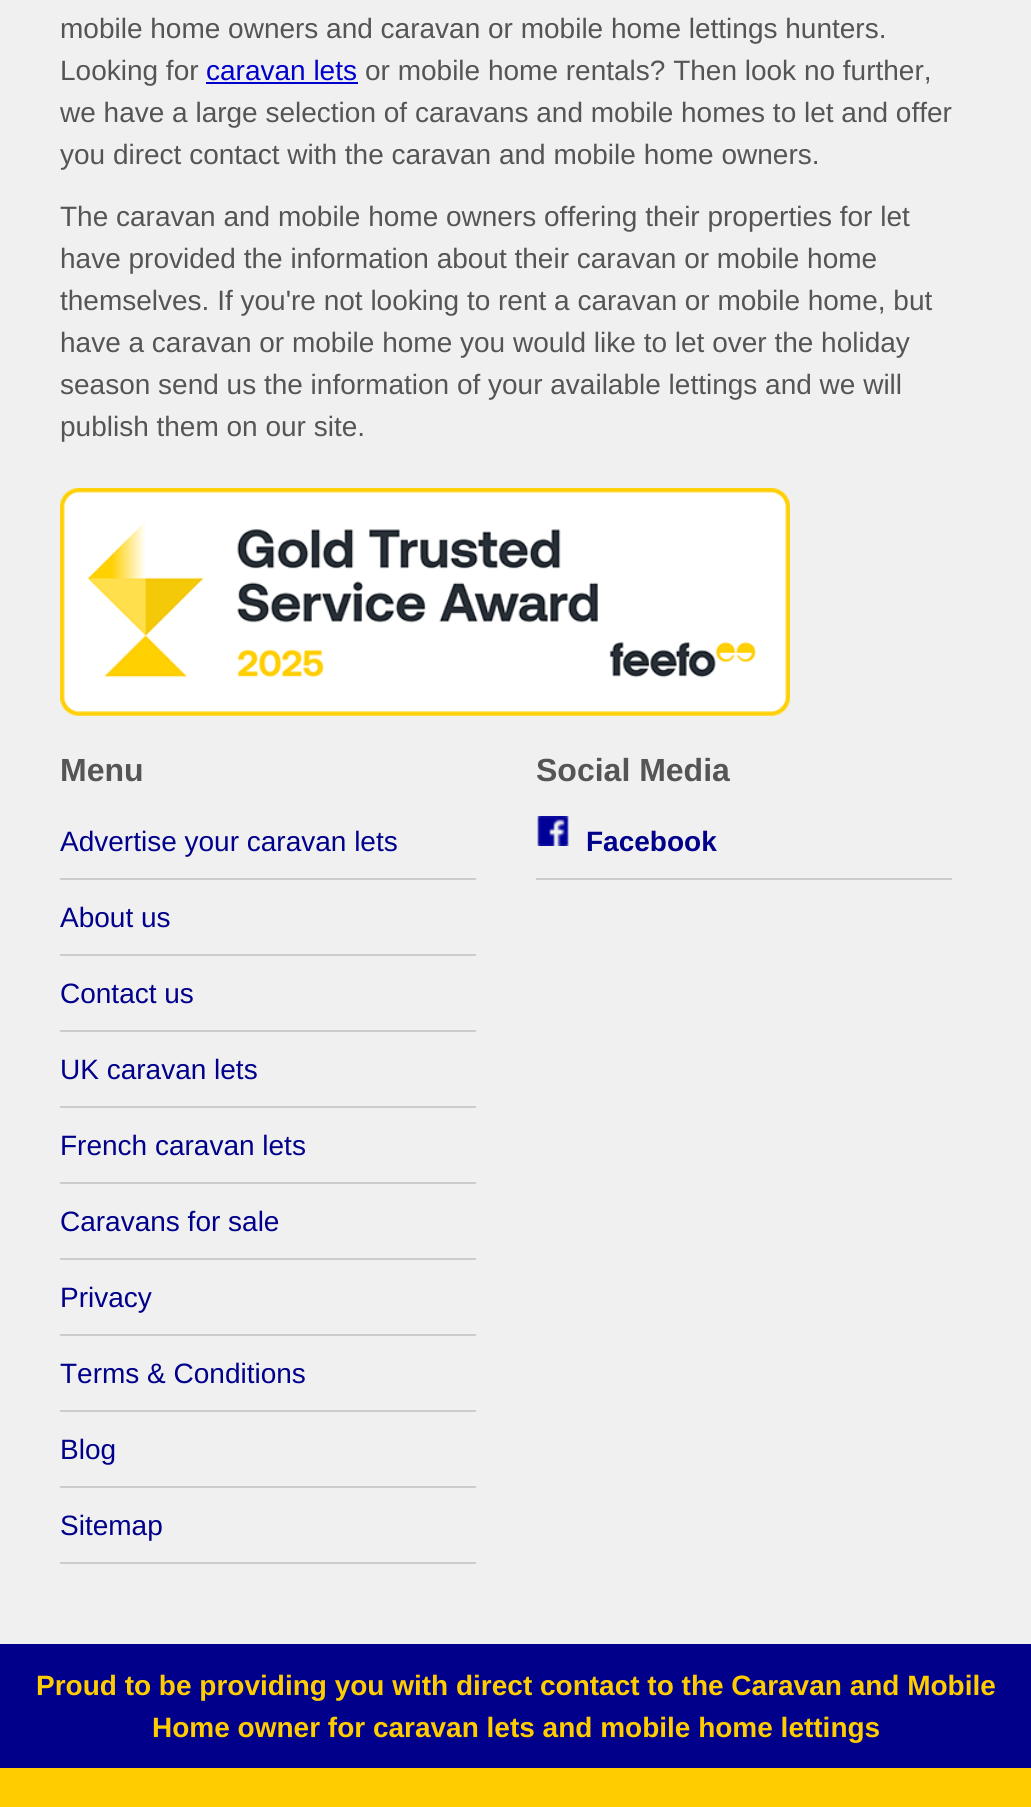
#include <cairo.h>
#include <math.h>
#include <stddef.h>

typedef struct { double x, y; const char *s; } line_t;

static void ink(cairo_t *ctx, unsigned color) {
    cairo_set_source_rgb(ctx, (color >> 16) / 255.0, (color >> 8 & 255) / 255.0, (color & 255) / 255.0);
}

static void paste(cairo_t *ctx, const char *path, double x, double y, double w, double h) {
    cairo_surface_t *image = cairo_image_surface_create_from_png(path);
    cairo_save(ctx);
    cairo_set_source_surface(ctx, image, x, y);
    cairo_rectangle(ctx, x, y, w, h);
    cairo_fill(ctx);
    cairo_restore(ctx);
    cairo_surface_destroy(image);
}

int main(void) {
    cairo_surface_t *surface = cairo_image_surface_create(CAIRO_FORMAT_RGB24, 1031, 1807);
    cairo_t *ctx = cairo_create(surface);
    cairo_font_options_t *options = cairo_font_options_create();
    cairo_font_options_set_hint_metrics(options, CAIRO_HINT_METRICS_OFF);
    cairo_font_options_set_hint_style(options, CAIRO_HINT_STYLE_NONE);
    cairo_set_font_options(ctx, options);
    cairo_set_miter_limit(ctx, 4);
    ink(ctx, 0xFFCC00);
    cairo_paint(ctx);
    ink(ctx, 0xF0F0F0);
    cairo_rectangle(ctx, 0, 0, 1031, 1644);
    cairo_fill(ctx);
    cairo_select_font_face(ctx, "Liberation Sans", CAIRO_FONT_SLANT_NORMAL, CAIRO_FONT_WEIGHT_NORMAL);
    cairo_set_font_size(ctx, 28);
    ink(ctx, 0x555555);
    cairo_move_to(ctx, 60, 38);
    cairo_show_text(ctx, "mobile home owners and caravan or mobile home lettings hunters.");
    cairo_move_to(ctx, 60, 80);
    cairo_show_text(ctx, "Looking for");
    ink(ctx, 0x0000CC);
    cairo_move_to(ctx, 206, 80);
    cairo_show_text(ctx, "caravan lets");
    cairo_rectangle(ctx, 206, 82, 152, 2);
    cairo_fill(ctx);
    ink(ctx, 0x555555);
    {
        static const line_t items[] = {
            {365, 80, "or mobile home rentals? Then look no further,"},
            {60, 122, "we have a large selection of caravans and mobile homes to let and offer"},
            {60, 164, "you direct contact with the caravan and mobile home owners."},
            {60, 226, "The caravan and mobile home owners offering their properties for let"},
            {60, 268, "have provided the information about their caravan or mobile home"},
            {60, 310, "themselves. If you're not looking to rent a caravan or mobile home, but"},
            {60, 352, "have a caravan or mobile home you would like to let over the holiday"},
            {60, 394, "season send us the information of your available lettings and we will"},
            {60, 436, "publish them on our site."},
        };
        for (size_t i = 0; i < sizeof items / sizeof *items; i++) {
            cairo_move_to(ctx, items[i].x, items[i].y);
            cairo_show_text(ctx, items[i].s);
        }
    }
    paste(ctx, "media/1.png", 60, 488, 730, 228);
    cairo_select_font_face(ctx, "Liberation Sans", CAIRO_FONT_SLANT_NORMAL, CAIRO_FONT_WEIGHT_BOLD);
    cairo_set_font_size(ctx, 32);
    cairo_move_to(ctx, 60, 781);
    cairo_show_text(ctx, "Menu");
    ink(ctx, 0xCCCCCC);
    cairo_rectangle(ctx, 60, 878, 416, 2);
    cairo_fill(ctx);
    cairo_select_font_face(ctx, "Liberation Sans", CAIRO_FONT_SLANT_NORMAL, CAIRO_FONT_WEIGHT_NORMAL);
    cairo_set_font_size(ctx, 28);
    ink(ctx, 0x00008B);
    cairo_move_to(ctx, 60, 851);
    cairo_show_text(ctx, "Advertise your caravan lets");
    ink(ctx, 0xCCCCCC);
    cairo_rectangle(ctx, 60, 954, 416, 2);
    cairo_fill(ctx);
    ink(ctx, 0x00008B);
    cairo_move_to(ctx, 60, 927);
    cairo_show_text(ctx, "About us");
    ink(ctx, 0xCCCCCC);
    cairo_rectangle(ctx, 60, 1030, 416, 2);
    cairo_fill(ctx);
    ink(ctx, 0x00008B);
    cairo_move_to(ctx, 60, 1003);
    cairo_show_text(ctx, "Contact us");
    ink(ctx, 0xCCCCCC);
    cairo_rectangle(ctx, 60, 1106, 416, 2);
    cairo_fill(ctx);
    ink(ctx, 0x00008B);
    cairo_move_to(ctx, 60, 1079);
    cairo_show_text(ctx, "UK caravan lets");
    ink(ctx, 0xCCCCCC);
    cairo_rectangle(ctx, 60, 1182, 416, 2);
    cairo_fill(ctx);
    ink(ctx, 0x00008B);
    cairo_move_to(ctx, 60, 1155);
    cairo_show_text(ctx, "French caravan lets");
    ink(ctx, 0xCCCCCC);
    cairo_rectangle(ctx, 60, 1258, 416, 2);
    cairo_fill(ctx);
    ink(ctx, 0x00008B);
    cairo_move_to(ctx, 60, 1231);
    cairo_show_text(ctx, "Caravans for sale");
    ink(ctx, 0xCCCCCC);
    cairo_rectangle(ctx, 60, 1334, 416, 2);
    cairo_fill(ctx);
    ink(ctx, 0x00008B);
    cairo_move_to(ctx, 60, 1307);
    cairo_show_text(ctx, "Privacy");
    ink(ctx, 0xCCCCCC);
    cairo_rectangle(ctx, 60, 1410, 416, 2);
    cairo_fill(ctx);
    ink(ctx, 0x00008B);
    cairo_move_to(ctx, 60, 1383);
    cairo_show_text(ctx, "Terms & Conditions");
    ink(ctx, 0xCCCCCC);
    cairo_rectangle(ctx, 60, 1486, 416, 2);
    cairo_fill(ctx);
    ink(ctx, 0x00008B);
    cairo_move_to(ctx, 60, 1459);
    cairo_show_text(ctx, "Blog");
    ink(ctx, 0xCCCCCC);
    cairo_rectangle(ctx, 60, 1562, 416, 2);
    cairo_fill(ctx);
    ink(ctx, 0x00008B);
    cairo_move_to(ctx, 60, 1535);
    cairo_show_text(ctx, "Sitemap");
    cairo_select_font_face(ctx, "Liberation Sans", CAIRO_FONT_SLANT_NORMAL, CAIRO_FONT_WEIGHT_BOLD);
    cairo_set_font_size(ctx, 32);
    ink(ctx, 0x555555);
    cairo_move_to(ctx, 536, 781);
    cairo_show_text(ctx, "Social Media");
    paste(ctx, "media/2.png", 537, 816, 32, 30);
    ink(ctx, 0xCCCCCC);
    cairo_rectangle(ctx, 536, 878, 416, 2);
    cairo_fill(ctx);
    cairo_set_font_size(ctx, 28);
    ink(ctx, 0x00008B);
    cairo_move_to(ctx, 586, 851);
    cairo_show_text(ctx, "Facebook");
    cairo_rectangle(ctx, 0, 1644, 1031, 124);
    cairo_fill(ctx);
    ink(ctx, 0xFFCC00);
    cairo_move_to(ctx, 36, 1695);
    cairo_show_text(ctx, "Proud to be providing you with direct contact to the Caravan and Mobile");
    cairo_move_to(ctx, 152, 1737);
    cairo_show_text(ctx, "Home owner for caravan lets and mobile home lettings");
    cairo_surface_write_to_png(surface, "image.png");
    cairo_font_options_destroy(options);
    cairo_destroy(ctx);
    cairo_surface_destroy(surface);
    return 0;
}
